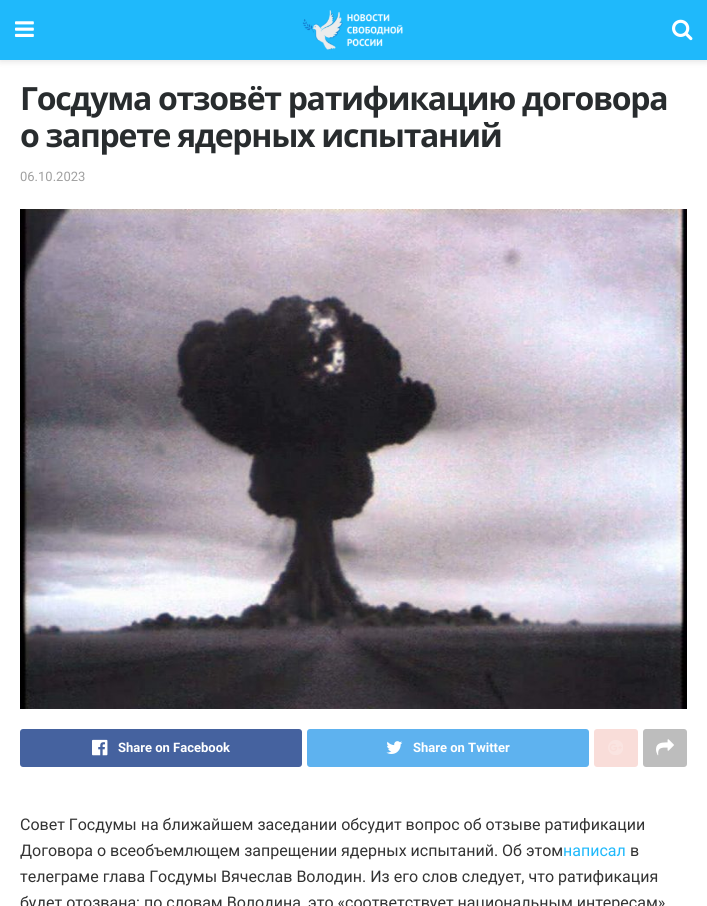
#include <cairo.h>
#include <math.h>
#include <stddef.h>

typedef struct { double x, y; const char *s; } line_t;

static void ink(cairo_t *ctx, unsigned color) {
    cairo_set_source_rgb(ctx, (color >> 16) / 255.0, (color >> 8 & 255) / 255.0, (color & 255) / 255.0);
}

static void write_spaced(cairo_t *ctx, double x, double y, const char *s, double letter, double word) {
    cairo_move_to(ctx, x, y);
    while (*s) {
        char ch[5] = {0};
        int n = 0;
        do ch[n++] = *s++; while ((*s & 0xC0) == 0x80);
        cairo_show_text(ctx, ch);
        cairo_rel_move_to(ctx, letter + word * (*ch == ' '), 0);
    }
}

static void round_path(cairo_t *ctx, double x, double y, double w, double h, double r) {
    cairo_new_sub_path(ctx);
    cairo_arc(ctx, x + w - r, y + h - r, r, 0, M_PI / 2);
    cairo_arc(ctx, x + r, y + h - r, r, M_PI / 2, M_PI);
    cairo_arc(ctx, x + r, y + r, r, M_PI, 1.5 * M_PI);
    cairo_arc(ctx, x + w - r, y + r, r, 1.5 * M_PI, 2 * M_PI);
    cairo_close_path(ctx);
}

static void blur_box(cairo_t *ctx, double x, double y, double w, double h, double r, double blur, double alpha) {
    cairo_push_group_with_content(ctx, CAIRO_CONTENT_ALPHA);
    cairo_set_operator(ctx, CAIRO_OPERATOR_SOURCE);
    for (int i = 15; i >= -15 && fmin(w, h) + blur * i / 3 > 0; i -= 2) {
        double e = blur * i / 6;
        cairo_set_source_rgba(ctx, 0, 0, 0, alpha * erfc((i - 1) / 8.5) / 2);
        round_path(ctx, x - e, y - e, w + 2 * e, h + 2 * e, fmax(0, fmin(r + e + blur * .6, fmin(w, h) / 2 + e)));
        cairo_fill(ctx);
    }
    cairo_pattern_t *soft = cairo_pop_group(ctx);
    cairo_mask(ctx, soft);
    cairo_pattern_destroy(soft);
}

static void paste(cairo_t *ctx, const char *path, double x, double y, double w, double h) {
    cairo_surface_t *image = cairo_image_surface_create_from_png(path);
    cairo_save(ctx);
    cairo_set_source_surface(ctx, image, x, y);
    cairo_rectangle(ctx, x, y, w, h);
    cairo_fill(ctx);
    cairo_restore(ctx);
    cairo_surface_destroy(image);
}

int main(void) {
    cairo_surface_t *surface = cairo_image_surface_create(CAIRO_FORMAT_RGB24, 707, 906);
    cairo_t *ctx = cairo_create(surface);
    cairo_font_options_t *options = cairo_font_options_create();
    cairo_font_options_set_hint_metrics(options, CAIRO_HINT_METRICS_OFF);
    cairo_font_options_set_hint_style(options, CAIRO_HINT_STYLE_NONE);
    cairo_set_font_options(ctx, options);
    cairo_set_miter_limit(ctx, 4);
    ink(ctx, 0xFFFFFF);
    cairo_paint(ctx);
    ink(ctx, 0x000000);
    blur_box(ctx, 0, 2, 707, 60, 0, 3, 0.1);
    ink(ctx, 0x1FB9FB);
    cairo_rectangle(ctx, 0, 0, 707, 60);
    cairo_fill(ctx);
    paste(ctx, "media/1.png", 15, 21, 19, 16);
    paste(ctx, "media/2.png", 302, 10, 101, 40);
    paste(ctx, "media/3.png", 672, 19, 21, 22);
    cairo_select_font_face(ctx, "Open Sans", CAIRO_FONT_SLANT_NORMAL, CAIRO_FONT_WEIGHT_BOLD);
    cairo_set_font_size(ctx, 32);
    ink(ctx, 0x282C2E);
    write_spaced(ctx, 20, 110, "Госдума отзовёт ратификацию договора", -1.3, 0);
    write_spaced(ctx, 20, 147, "о запрете ядерных испытаний", -1.3, 0);
    cairo_select_font_face(ctx, "Roboto", CAIRO_FONT_SLANT_NORMAL, CAIRO_FONT_WEIGHT_NORMAL);
    cairo_set_font_size(ctx, 13);
    ink(ctx, 0xA0A0A0);
    cairo_move_to(ctx, 20, 181);
    cairo_show_text(ctx, "06.10.2023");
    paste(ctx, "media/4.png", 20, 209, 667, 500);
    ink(ctx, 0x45629F);
    round_path(ctx, 20, 729, 282, 38, 3);
    cairo_fill(ctx);
    paste(ctx, "media/5.png", 92, 739, 16, 17);
    cairo_select_font_face(ctx, "Roboto", CAIRO_FONT_SLANT_NORMAL, CAIRO_FONT_WEIGHT_BOLD);
    ink(ctx, 0xFFFFFF);
    cairo_move_to(ctx, 118, 752);
    cairo_show_text(ctx, "Share on Facebook");
    ink(ctx, 0x5EB2EF);
    round_path(ctx, 307, 729, 282, 38, 3);
    cairo_fill(ctx);
    paste(ctx, "media/6.png", 386, 741, 17, 13);
    ink(ctx, 0xFFFFFF);
    cairo_move_to(ctx, 413, 752);
    cairo_show_text(ctx, "Share on Twitter");
    ink(ctx, 0xF9DDD9);
    round_path(ctx, 594, 729, 44, 38, 3);
    cairo_fill(ctx);
    paste(ctx, "media/7.png", 608, 740, 15, 15);
    ink(ctx, 0xBDBDBD);
    round_path(ctx, 643, 729, 44, 38, 3);
    cairo_fill(ctx);
    paste(ctx, "media/8.png", 656, 739, 18, 17);
    cairo_select_font_face(ctx, "Roboto", CAIRO_FONT_SLANT_NORMAL, CAIRO_FONT_WEIGHT_NORMAL);
    cairo_set_font_size(ctx, 16);
    ink(ctx, 0x333333);
    cairo_move_to(ctx, 20, 830);
    cairo_show_text(ctx, "Совет Госдумы на ближайшем заседании обсудит вопрос об отзыве ратификации");
    cairo_move_to(ctx, 20, 856);
    cairo_show_text(ctx, "Договора о всеобъемлющем запрещении ядерных испытаний. Об этом");
    ink(ctx, 0x1FB9FB);
    cairo_move_to(ctx, 563, 856);
    cairo_show_text(ctx, "написал");
    ink(ctx, 0x333333);
    {
        static const line_t items[] = {
            {630, 856, "в"},
            {20, 882, "телеграме глава Госдумы Вячеслав Володин. Из его слов следует, что ратификация"},
            {20, 908, "будет отозвана: по словам Володина, это «соответствует национальным интересам»"},
        };
        for (size_t i = 0; i < sizeof items / sizeof *items; i++) {
            cairo_move_to(ctx, items[i].x, items[i].y);
            cairo_show_text(ctx, items[i].s);
        }
    }
    cairo_surface_write_to_png(surface, "image.png");
    cairo_font_options_destroy(options);
    cairo_destroy(ctx);
    cairo_surface_destroy(surface);
    return 0;
}
